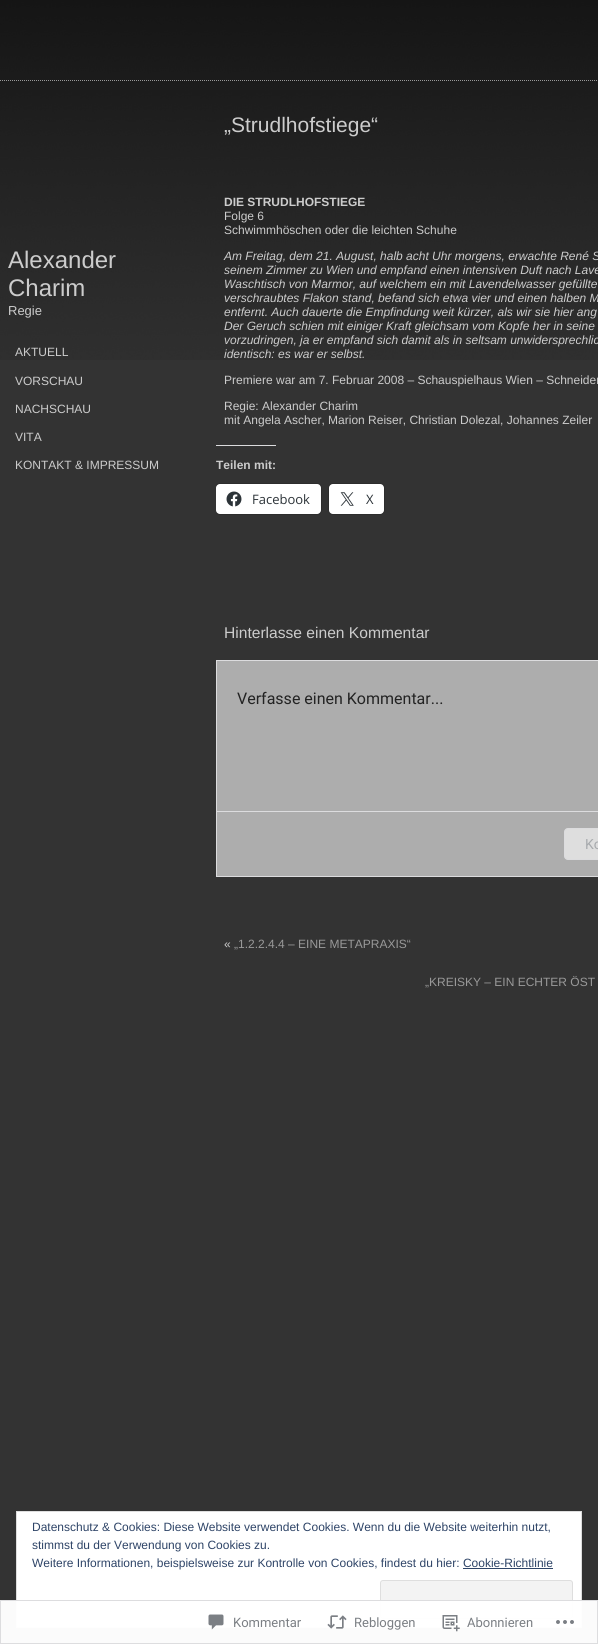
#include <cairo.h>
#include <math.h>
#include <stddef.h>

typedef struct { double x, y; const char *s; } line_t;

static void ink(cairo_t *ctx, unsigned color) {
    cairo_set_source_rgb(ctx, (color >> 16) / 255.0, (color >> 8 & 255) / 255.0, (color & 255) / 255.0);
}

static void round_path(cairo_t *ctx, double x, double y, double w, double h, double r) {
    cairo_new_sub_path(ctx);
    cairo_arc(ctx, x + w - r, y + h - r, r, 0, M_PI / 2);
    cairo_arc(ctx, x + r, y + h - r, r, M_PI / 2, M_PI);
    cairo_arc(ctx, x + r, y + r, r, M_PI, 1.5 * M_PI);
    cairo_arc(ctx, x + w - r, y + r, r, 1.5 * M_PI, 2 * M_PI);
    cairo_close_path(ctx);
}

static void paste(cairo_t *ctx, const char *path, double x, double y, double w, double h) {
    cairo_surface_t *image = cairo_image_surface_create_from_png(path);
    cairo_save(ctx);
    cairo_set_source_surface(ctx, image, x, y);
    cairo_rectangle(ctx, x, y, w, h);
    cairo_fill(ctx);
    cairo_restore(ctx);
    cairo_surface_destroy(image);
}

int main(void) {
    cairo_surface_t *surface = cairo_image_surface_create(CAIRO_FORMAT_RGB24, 598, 1644);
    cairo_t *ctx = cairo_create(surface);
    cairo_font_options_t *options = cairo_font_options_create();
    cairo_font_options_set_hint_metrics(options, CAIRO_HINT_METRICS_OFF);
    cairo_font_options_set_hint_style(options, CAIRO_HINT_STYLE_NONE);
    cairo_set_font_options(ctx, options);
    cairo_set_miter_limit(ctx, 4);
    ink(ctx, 0x333333);
    cairo_paint(ctx);
    paste(ctx, "media/1.png", 0, 0, 598, 360);
    cairo_new_path(ctx);
    cairo_move_to(ctx, 0, 80.5);
    cairo_line_to(ctx, 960, 80.5);
    ink(ctx, 0x999999);
    cairo_set_line_width(ctx, 1);
    cairo_set_dash(ctx, (double[]){1, 1}, 2, 0);
    cairo_stroke(ctx);
    cairo_select_font_face(ctx, "Liberation Sans", CAIRO_FONT_SLANT_NORMAL, CAIRO_FONT_WEIGHT_NORMAL);
    cairo_set_font_size(ctx, 24);
    ink(ctx, 0xCCCCCC);
    cairo_move_to(ctx, 8, 268);
    cairo_show_text(ctx, "Alexander");
    cairo_move_to(ctx, 8, 296);
    cairo_show_text(ctx, "Charim");
    cairo_set_font_size(ctx, 13);
    cairo_move_to(ctx, 8, 315);
    cairo_show_text(ctx, "Regie");
    cairo_set_font_size(ctx, 12);
    {
        static const line_t items[] = {
            {15, 356, "AKTUELL"},
            {15, 385, "VORSCHAU"},
            {15, 413, "NACHSCHAU"},
            {15, 441, "VITA"},
            {15, 469, "KONTAKT & IMPRESSUM"},
        };
        for (size_t i = 0; i < sizeof items / sizeof *items; i++) {
            cairo_move_to(ctx, items[i].x, items[i].y);
            cairo_show_text(ctx, items[i].s);
        }
    }
    cairo_set_font_size(ctx, 21);
    cairo_move_to(ctx, 224, 132);
    cairo_show_text(ctx, "„Strudlhofstiege“");
    cairo_select_font_face(ctx, "Liberation Sans", CAIRO_FONT_SLANT_NORMAL, CAIRO_FONT_WEIGHT_BOLD);
    cairo_set_font_size(ctx, 12);
    cairo_move_to(ctx, 224, 206);
    cairo_show_text(ctx, "DIE STRUDLHOFSTIEGE");
    cairo_select_font_face(ctx, "Liberation Sans", CAIRO_FONT_SLANT_NORMAL, CAIRO_FONT_WEIGHT_NORMAL);
    cairo_move_to(ctx, 224, 220);
    cairo_show_text(ctx, "Folge 6");
    cairo_move_to(ctx, 224, 234);
    cairo_show_text(ctx, "Schwimmhöschen oder die leichten Schuhe");
    cairo_select_font_face(ctx, "Liberation Sans", CAIRO_FONT_SLANT_ITALIC, CAIRO_FONT_WEIGHT_NORMAL);
    {
        static const line_t items[] = {
            {224, 260, "Am Freitag, dem 21. August, halb acht Uhr morgens, erwachte René S"},
            {224, 274, "seinem Zimmer zu Wien und empfand einen intensiven Duft nach Lave"},
            {224, 288, "Waschtisch von Marmor, auf welchem ein mit Lavendelwasser gefüllte"},
            {224, 302, "verschraubtes Flakon stand, befand sich etwa vier und einen halben M"},
            {224, 316, "entfernt. Auch dauerte die Empfindung weit kürzer, als wir sie hier ang"},
            {224, 330, "Der Geruch schien mit einiger Kraft gleichsam vom Kopfe her in seine"},
            {224, 344, "vorzudringen, ja er empfand sich damit als in seltsam unwidersprechlic"},
            {224, 358, "identisch: es war er selbst."},
        };
        for (size_t i = 0; i < sizeof items / sizeof *items; i++) {
            cairo_move_to(ctx, items[i].x, items[i].y);
            cairo_show_text(ctx, items[i].s);
        }
    }
    cairo_select_font_face(ctx, "Liberation Sans", CAIRO_FONT_SLANT_NORMAL, CAIRO_FONT_WEIGHT_NORMAL);
    {
        static const line_t items[] = {
            {224, 384, "Premiere war am 7. Februar 2008 – Schauspielhaus Wien – Schneider"},
            {224, 410, "Regie: Alexander Charim"},
            {224, 424, "mit Angela Ascher, Marion Reiser, Christian Dolezal, Johannes Zeiler"},
        };
        for (size_t i = 0; i < sizeof items / sizeof *items; i++) {
            cairo_move_to(ctx, items[i].x, items[i].y);
            cairo_show_text(ctx, items[i].s);
        }
    }
    ink(ctx, 0xDCDCDE);
    cairo_rectangle(ctx, 216, 445, 60, 1);
    cairo_fill(ctx);
    cairo_select_font_face(ctx, "Liberation Sans", CAIRO_FONT_SLANT_NORMAL, CAIRO_FONT_WEIGHT_BOLD);
    ink(ctx, 0xCCCCCC);
    cairo_move_to(ctx, 216, 469);
    cairo_show_text(ctx, "Teilen mit:");
    cairo_save(ctx);
    cairo_rectangle(ctx, 216, 149, 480, 728);
    cairo_clip(ctx);
    round_path(ctx, 215.5, 483.5, 106, 31, 4.5);
    ink(ctx, 0x2D2D2D);
    cairo_set_dash(ctx, NULL, 0, 0);
    cairo_stroke(ctx);
    cairo_restore(ctx);
    ink(ctx, 0xFFFFFF);
    round_path(ctx, 216, 484, 105, 30, 4);
    cairo_fill(ctx);
    paste(ctx, "media/2.png", 226, 491, 16, 16);
    cairo_select_font_face(ctx, "Open Sans", CAIRO_FONT_SLANT_NORMAL, CAIRO_FONT_WEIGHT_NORMAL);
    cairo_set_font_size(ctx, 13);
    ink(ctx, 0x2C3338);
    cairo_move_to(ctx, 252, 504);
    cairo_show_text(ctx, "Facebook");
    round_path(ctx, 328.5, 483.5, 56, 31, 4.5);
    ink(ctx, 0x2D2D2D);
    cairo_set_dash(ctx, NULL, 0, 0);
    cairo_stroke(ctx);
    ink(ctx, 0xFFFFFF);
    round_path(ctx, 329, 484, 55, 30, 4);
    cairo_fill(ctx);
    paste(ctx, "media/3.png", 340, 492, 14, 14);
    ink(ctx, 0x2C3338);
    cairo_move_to(ctx, 366, 504);
    cairo_show_text(ctx, "X");
    cairo_select_font_face(ctx, "Liberation Sans", CAIRO_FONT_SLANT_NORMAL, CAIRO_FONT_WEIGHT_NORMAL);
    cairo_set_font_size(ctx, 15.6);
    ink(ctx, 0xCCCCCC);
    cairo_move_to(ctx, 224, 638);
    cairo_show_text(ctx, "Hinterlasse einen Kommentar");
    ink(ctx, 0xADADAD);
    cairo_rectangle(ctx, 216.5, 660.5, 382, 216);
    cairo_fill_preserve(ctx);
    ink(ctx, 0xDCDCDE);
    cairo_stroke(ctx);
    cairo_select_font_face(ctx, "Roboto", CAIRO_FONT_SLANT_NORMAL, CAIRO_FONT_WEIGHT_NORMAL);
    cairo_set_font_size(ctx, 16);
    ink(ctx, 0x232323);
    cairo_move_to(ctx, 237, 704);
    cairo_show_text(ctx, "Verfasse einen Kommentar...");
    ink(ctx, 0xDCDCDE);
    cairo_rectangle(ctx, 217, 811, 381, 1);
    cairo_fill(ctx);
    ink(ctx, 0xDEDEDE);
    round_path(ctx, 564.5, 828.5, 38, 31, 3.5);
    cairo_fill_preserve(ctx);
    ink(ctx, 0xDCDCDE);
    cairo_stroke(ctx);
    cairo_set_font_size(ctx, 14);
    ink(ctx, 0xA7AAAD);
    cairo_move_to(ctx, 585, 849);
    cairo_show_text(ctx, "Ko");
    cairo_select_font_face(ctx, "Liberation Sans", CAIRO_FONT_SLANT_NORMAL, CAIRO_FONT_WEIGHT_NORMAL);
    cairo_set_font_size(ctx, 12);
    ink(ctx, 0xCCCCCC);
    cairo_move_to(ctx, 224, 948);
    cairo_show_text(ctx, "«");
    ink(ctx, 0x999999);
    cairo_move_to(ctx, 234, 948);
    cairo_show_text(ctx, "„1.2.2.4.4 – EINE METAPRAXIS“");
    cairo_move_to(ctx, 425, 986);
    cairo_show_text(ctx, "„KREISKY – EIN ECHTER ÖST");
    ink(ctx, 0xFFFFFF);
    cairo_rectangle(ctx, 16.5, 1511.5, 565, 116);
    cairo_fill_preserve(ctx);
    ink(ctx, 0xDEDEDE);
    cairo_stroke(ctx);
    ink(ctx, 0x2E4467);
    {
        static const line_t items[] = {
            {32, 1531, "Datenschutz & Cookies: Diese Website verwendet Cookies. Wenn du die Website weiterhin nutzt,"},
            {32, 1549, "stimmst du der Verwendung von Cookies zu."},
            {32, 1567, "Weitere Informationen, beispielsweise zur Kontrolle von Cookies, findest du hier: Cookie-Richtlinie"},
        };
        for (size_t i = 0; i < sizeof items / sizeof *items; i++) {
            cairo_move_to(ctx, items[i].x, items[i].y);
            cairo_show_text(ctx, items[i].s);
        }
    }
    cairo_rectangle(ctx, 463, 1568, 90, 1);
    cairo_fill(ctx);
    ink(ctx, 0xF3F3F3);
    round_path(ctx, 380.5, 1580.5, 192, 38, 2.5);
    cairo_fill_preserve(ctx);
    ink(ctx, 0xDEDEDE);
    cairo_stroke(ctx);
    cairo_set_source_rgba(ctx, 1, 1, 1, 0.98);
    cairo_rectangle(ctx, 0, 1600, 598, 44);
    cairo_fill(ctx);
    cairo_rectangle(ctx, 0.5, 1600.5, 597, 43);
    cairo_set_source_rgba(ctx, 0.863, 0.863, 0.871, 0.98);
    cairo_stroke(ctx);
    paste(ctx, "media/4.png", 208, 1614, 16, 16);
    cairo_select_font_face(ctx, "Roboto", CAIRO_FONT_SLANT_NORMAL, CAIRO_FONT_WEIGHT_NORMAL);
    cairo_set_font_size(ctx, 13);
    ink(ctx, 0x7B7F84);
    cairo_move_to(ctx, 233, 1627);
    cairo_show_text(ctx, "Kommentar");
    paste(ctx, "media/5.png", 327, 1615, 20, 14);
    cairo_move_to(ctx, 354, 1627);
    cairo_show_text(ctx, "Rebloggen");
    paste(ctx, "media/6.png", 442, 1615, 18, 17);
    cairo_move_to(ctx, 467, 1627);
    cairo_show_text(ctx, "Abonnieren");
    paste(ctx, "media/7.png", 556, 1620, 18, 4);
    cairo_surface_write_to_png(surface, "image.png");
    cairo_font_options_destroy(options);
    cairo_destroy(ctx);
    cairo_surface_destroy(surface);
    return 0;
}
